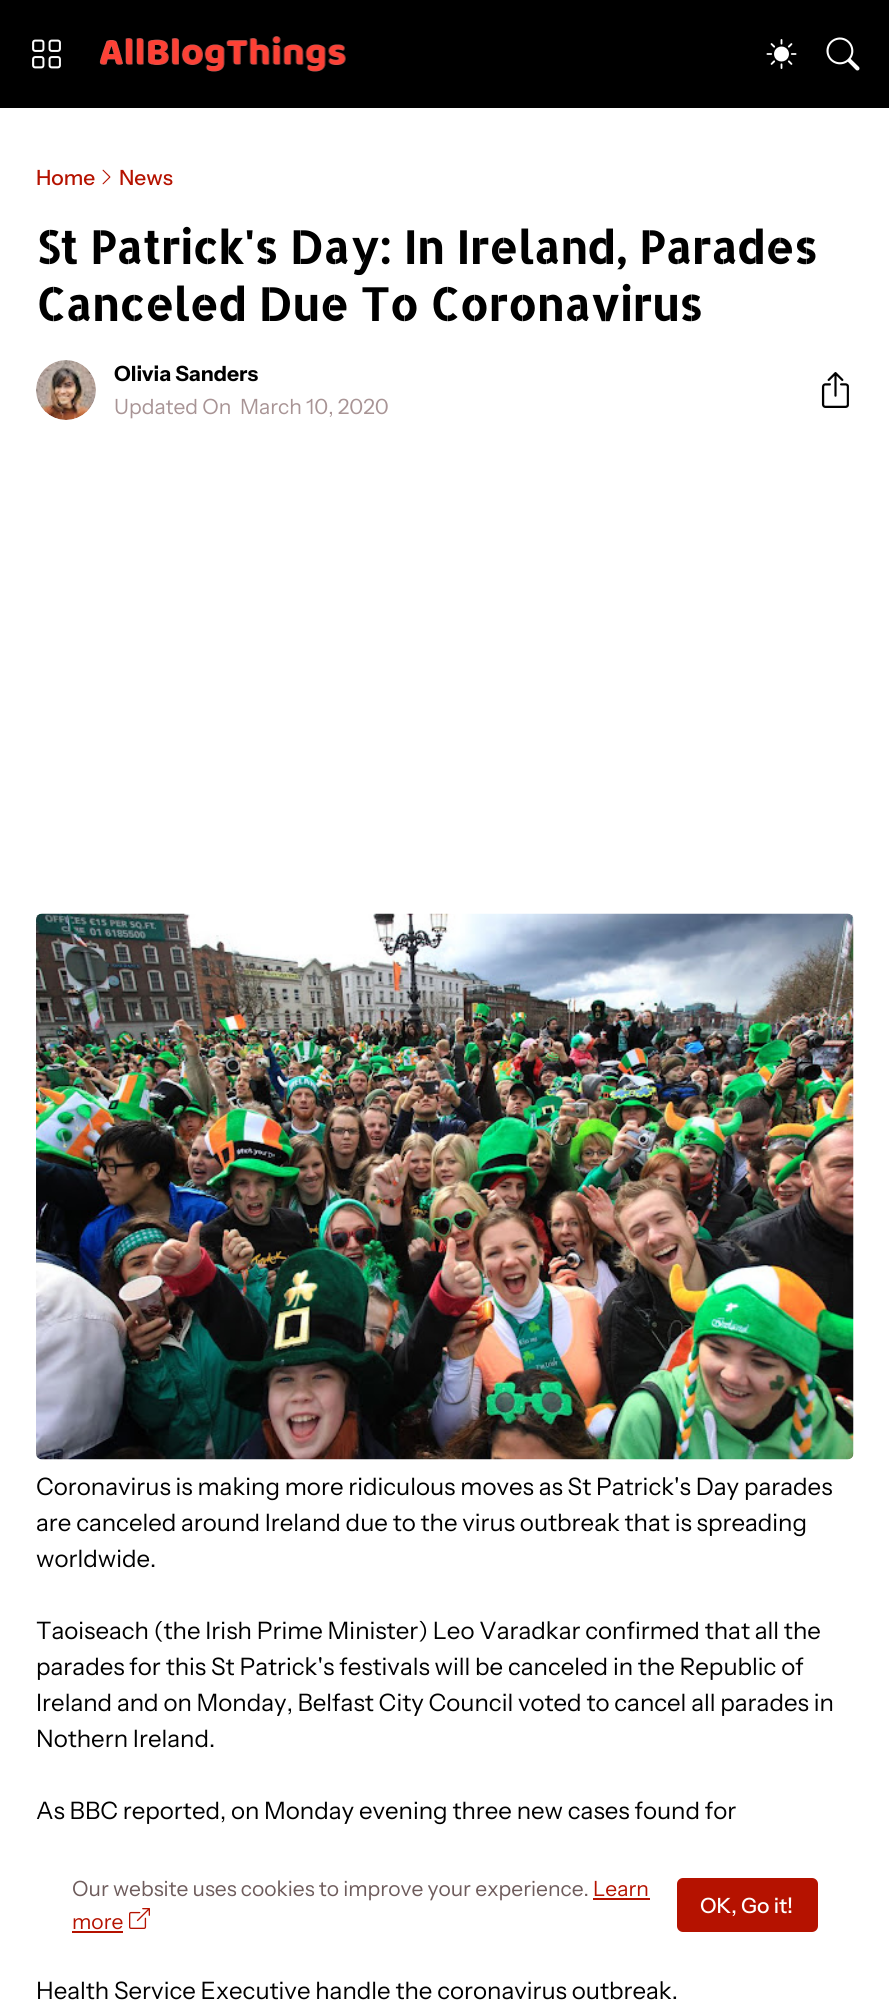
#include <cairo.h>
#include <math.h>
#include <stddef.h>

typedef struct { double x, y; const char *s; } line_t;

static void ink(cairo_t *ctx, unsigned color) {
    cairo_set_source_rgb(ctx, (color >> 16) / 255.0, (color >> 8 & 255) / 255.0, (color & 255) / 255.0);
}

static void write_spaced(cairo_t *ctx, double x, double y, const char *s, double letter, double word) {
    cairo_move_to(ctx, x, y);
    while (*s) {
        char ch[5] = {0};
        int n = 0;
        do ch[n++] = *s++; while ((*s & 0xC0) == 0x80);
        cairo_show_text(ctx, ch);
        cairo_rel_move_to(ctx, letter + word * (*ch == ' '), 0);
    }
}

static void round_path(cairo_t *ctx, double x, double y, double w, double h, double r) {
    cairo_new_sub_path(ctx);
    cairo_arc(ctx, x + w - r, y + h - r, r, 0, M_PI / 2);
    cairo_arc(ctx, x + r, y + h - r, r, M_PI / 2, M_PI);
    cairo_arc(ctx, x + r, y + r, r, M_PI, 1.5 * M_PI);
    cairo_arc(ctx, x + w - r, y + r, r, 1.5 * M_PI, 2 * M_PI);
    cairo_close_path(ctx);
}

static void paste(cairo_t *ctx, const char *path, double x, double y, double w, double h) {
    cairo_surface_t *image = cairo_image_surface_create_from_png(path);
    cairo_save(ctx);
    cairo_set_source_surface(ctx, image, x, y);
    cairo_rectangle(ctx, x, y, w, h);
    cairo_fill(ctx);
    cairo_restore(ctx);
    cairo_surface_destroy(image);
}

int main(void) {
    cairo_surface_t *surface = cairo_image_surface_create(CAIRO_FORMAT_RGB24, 889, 2008);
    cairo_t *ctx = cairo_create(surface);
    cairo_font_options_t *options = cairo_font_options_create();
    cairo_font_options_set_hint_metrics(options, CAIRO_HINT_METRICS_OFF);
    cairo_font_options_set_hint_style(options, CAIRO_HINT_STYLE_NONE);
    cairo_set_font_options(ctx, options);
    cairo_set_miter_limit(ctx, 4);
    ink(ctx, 0xFFFFFF);
    cairo_paint(ctx);
    ink(ctx, 0x000000);
    cairo_rectangle(ctx, 0, 0, 889, 108);
    cairo_fill(ctx);
    paste(ctx, "media/1.png", 32, 39, 29, 30);
    paste(ctx, "media/2.png", 99, 36, 247, 36);
    paste(ctx, "media/3.png", 766, 39, 31, 30);
    paste(ctx, "media/4.png", 826, 37, 34, 34);
    cairo_select_font_face(ctx, "Instrument Sans Medium", CAIRO_FONT_SLANT_NORMAL, CAIRO_FONT_WEIGHT_NORMAL);
    cairo_set_font_size(ctx, 21);
    ink(ctx, 0xB51200);
    cairo_move_to(ctx, 36, 185);
    cairo_show_text(ctx, "Home");
    paste(ctx, "media/5.png", 102, 169, 9, 16);
    cairo_move_to(ctx, 119, 185);
    cairo_show_text(ctx, "News");
    cairo_select_font_face(ctx, "Allerta Stencil", CAIRO_FONT_SLANT_NORMAL, CAIRO_FONT_WEIGHT_BOLD);
    cairo_set_font_size(ctx, 45);
    ink(ctx, 0x000000);
    write_spaced(ctx, 36, 264, "St Patrick's Day: In Ireland, Parades", -0.2, 0);
    write_spaced(ctx, 36, 321, "Canceled Due To Coronavirus", -0.2, 0);
    ink(ctx, 0xF3EFEF);
    cairo_new_path(ctx);
    cairo_arc(ctx, 66, 390, 30, 0, 2 * M_PI);
    cairo_fill(ctx);
    paste(ctx, "media/6.png", 36, 360, 60, 60);
    cairo_select_font_face(ctx, "Instrument Sans", CAIRO_FONT_SLANT_NORMAL, CAIRO_FONT_WEIGHT_BOLD);
    cairo_set_font_size(ctx, 21);
    ink(ctx, 0x000000);
    cairo_move_to(ctx, 114, 381);
    cairo_show_text(ctx, "Olivia Sanders");
    cairo_select_font_face(ctx, "Instrument Sans", CAIRO_FONT_SLANT_NORMAL, CAIRO_FONT_WEIGHT_NORMAL);
    ink(ctx, 0xA89495);
    cairo_move_to(ctx, 114, 414);
    cairo_show_text(ctx, "Updated On");
    cairo_move_to(ctx, 240, 414);
    cairo_show_text(ctx, "March 10, 2020");
    paste(ctx, "media/7.png", 821, 372, 28, 36);
    paste(ctx, "media/8.png", 36, 913, 818, 547);
    cairo_set_font_size(ctx, 24);
    ink(ctx, 0x000000);
    {
        static const line_t items[] = {
            {36, 1495, "Coronavirus is making more ridiculous moves as St Patrick's Day parades"},
            {36, 1531, "are canceled around Ireland due to the virus outbreak that is spreading"},
            {36, 1567, "worldwide."},
            {36, 1639, "Taoiseach (the Irish Prime Minister) Leo Varadkar confirmed that all the"},
            {36, 1675, "parades for this St Patrick's festivals will be canceled in the Republic of"},
            {36, 1711, "Ireland and on Monday, Belfast City Council voted to cancel all parades in"},
            {36, 1747, "Nothern Ireland."},
            {36, 1819, "As BBC reported, on Monday evening three new cases found for"},
            {36, 1999, "Health Service Executive handle the coronavirus outbreak."},
        };
        for (size_t i = 0; i < sizeof items / sizeof *items; i++) {
            cairo_move_to(ctx, items[i].x, items[i].y);
            cairo_show_text(ctx, items[i].s);
        }
    }
    cairo_set_font_size(ctx, 21);
    ink(ctx, 0x6E5C5C);
    cairo_move_to(ctx, 72, 1896);
    cairo_show_text(ctx, "Our website uses cookies to improve your experience.");
    ink(ctx, 0xB51200);
    cairo_move_to(ctx, 593, 1896);
    cairo_show_text(ctx, "Learn");
    cairo_rectangle(ctx, 593, 1898, 57, 2);
    cairo_fill(ctx);
    cairo_move_to(ctx, 72, 1929);
    cairo_show_text(ctx, "more");
    cairo_rectangle(ctx, 72, 1931, 51, 2);
    cairo_fill(ctx);
    paste(ctx, "media/9.png", 129, 1908, 21, 21);
    round_path(ctx, 677, 1878, 141, 54, 6);
    cairo_fill(ctx);
    cairo_select_font_face(ctx, "Instrument Sans Medium", CAIRO_FONT_SLANT_NORMAL, CAIRO_FONT_WEIGHT_NORMAL);
    ink(ctx, 0xFFFFFF);
    cairo_move_to(ctx, 700, 1913);
    cairo_show_text(ctx, "OK, Go it!");
    cairo_surface_write_to_png(surface, "image.png");
    cairo_font_options_destroy(options);
    cairo_destroy(ctx);
    cairo_surface_destroy(surface);
    return 0;
}
